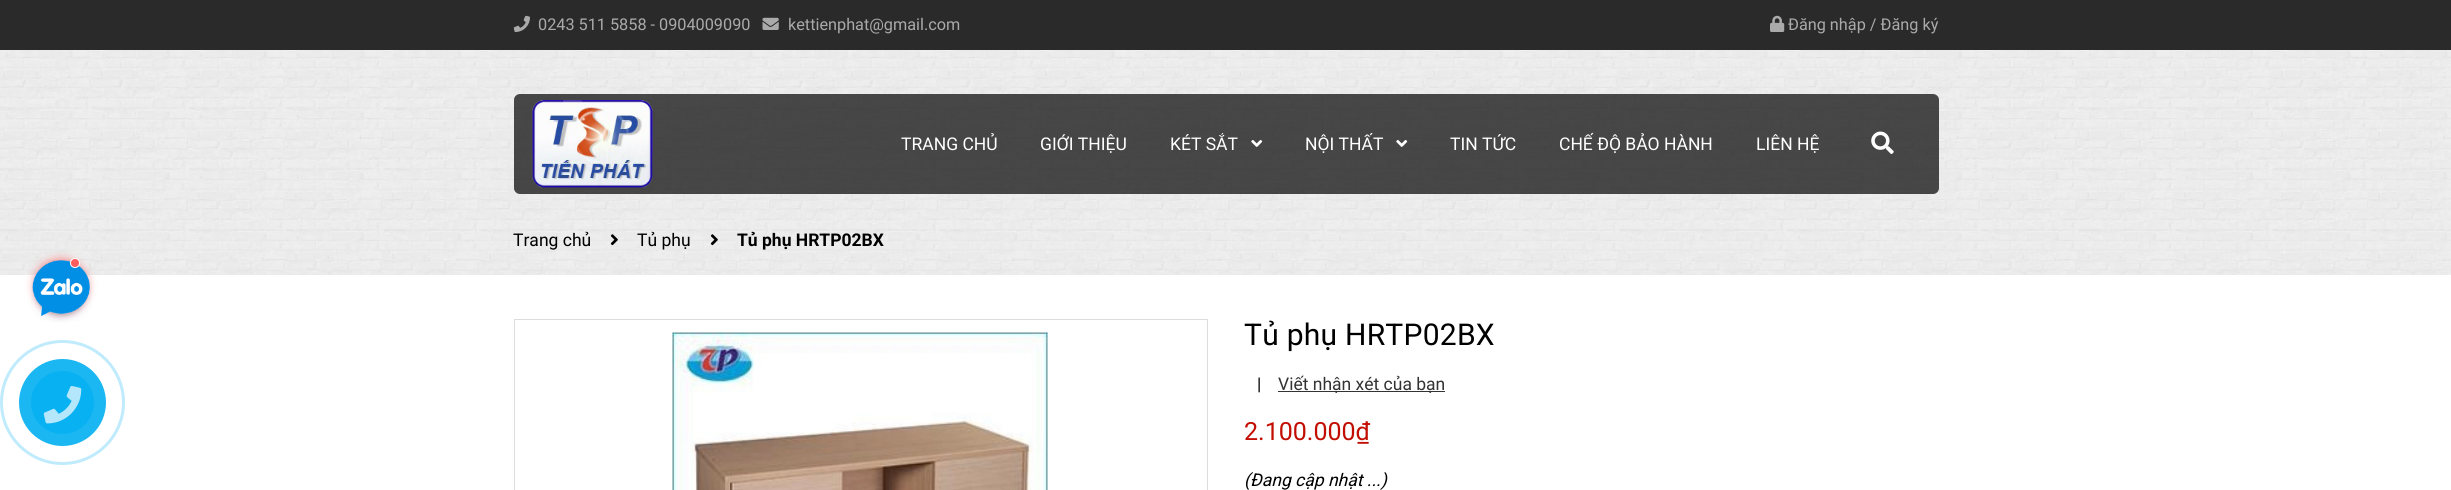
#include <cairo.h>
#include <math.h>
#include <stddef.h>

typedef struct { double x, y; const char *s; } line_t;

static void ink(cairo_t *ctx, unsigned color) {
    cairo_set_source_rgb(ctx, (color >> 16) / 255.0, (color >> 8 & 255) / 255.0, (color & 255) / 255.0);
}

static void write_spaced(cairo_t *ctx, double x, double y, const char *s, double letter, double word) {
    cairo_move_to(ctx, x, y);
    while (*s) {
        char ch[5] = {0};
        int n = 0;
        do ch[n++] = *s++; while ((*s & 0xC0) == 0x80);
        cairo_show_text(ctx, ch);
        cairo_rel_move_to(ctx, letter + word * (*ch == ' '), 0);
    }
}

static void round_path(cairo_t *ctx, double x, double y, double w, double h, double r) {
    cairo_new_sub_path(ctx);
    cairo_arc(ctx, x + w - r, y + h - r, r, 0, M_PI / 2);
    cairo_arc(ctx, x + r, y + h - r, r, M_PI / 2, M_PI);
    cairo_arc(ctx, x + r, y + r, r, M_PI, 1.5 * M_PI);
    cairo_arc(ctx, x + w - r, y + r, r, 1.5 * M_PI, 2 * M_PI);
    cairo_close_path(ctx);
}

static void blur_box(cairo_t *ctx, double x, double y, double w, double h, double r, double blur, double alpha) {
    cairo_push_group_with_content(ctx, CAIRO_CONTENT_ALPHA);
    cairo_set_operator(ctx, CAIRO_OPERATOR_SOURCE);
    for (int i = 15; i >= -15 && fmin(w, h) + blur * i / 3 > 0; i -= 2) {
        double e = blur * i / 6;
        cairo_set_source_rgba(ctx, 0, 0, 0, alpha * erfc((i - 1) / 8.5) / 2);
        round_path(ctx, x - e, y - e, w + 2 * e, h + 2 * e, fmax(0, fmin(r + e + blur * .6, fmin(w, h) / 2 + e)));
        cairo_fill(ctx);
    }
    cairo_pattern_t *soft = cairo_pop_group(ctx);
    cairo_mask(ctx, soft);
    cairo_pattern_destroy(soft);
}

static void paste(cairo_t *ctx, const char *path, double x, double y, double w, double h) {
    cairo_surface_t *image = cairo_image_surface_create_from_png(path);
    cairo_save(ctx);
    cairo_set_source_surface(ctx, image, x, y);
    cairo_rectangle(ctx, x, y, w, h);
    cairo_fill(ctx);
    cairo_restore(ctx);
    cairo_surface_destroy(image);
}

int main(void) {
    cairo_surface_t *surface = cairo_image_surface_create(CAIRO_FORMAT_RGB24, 2451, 490);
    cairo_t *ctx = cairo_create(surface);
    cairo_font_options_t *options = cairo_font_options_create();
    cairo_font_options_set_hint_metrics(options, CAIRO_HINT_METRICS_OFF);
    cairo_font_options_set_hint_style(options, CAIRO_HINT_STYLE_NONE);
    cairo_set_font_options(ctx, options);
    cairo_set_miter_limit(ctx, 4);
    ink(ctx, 0xFFFFFF);
    cairo_paint(ctx);
    ink(ctx, 0x2A2A2A);
    cairo_rectangle(ctx, 0, 0, 2451, 50);
    cairo_fill(ctx);
    paste(ctx, "media/1.png", 513, 15, 17, 17);
    cairo_select_font_face(ctx, "Roboto", CAIRO_FONT_SLANT_NORMAL, CAIRO_FONT_WEIGHT_NORMAL);
    cairo_set_font_size(ctx, 16.25);
    ink(ctx, 0xAAAAAA);
    cairo_move_to(ctx, 538, 30);
    cairo_show_text(ctx, "0243 511 5858 - 0904009090");
    paste(ctx, "media/2.png", 762, 17, 17, 13);
    cairo_move_to(ctx, 788, 30);
    cairo_show_text(ctx, "kettienphat@gmail.com");
    paste(ctx, "media/3.png", 1770, 15, 15, 17);
    cairo_move_to(ctx, 1788, 30);
    cairo_show_text(ctx, "Đăng nhập / Đăng ký");
    paste(ctx, "media/8.png", 0, 50, 2451, 225);
    cairo_set_source_rgba(ctx, 0, 0, 0, 0.7);
    round_path(ctx, 514, 94, 1425, 100, 6);
    cairo_fill(ctx);
    paste(ctx, "media/4.png", 532, 100, 121, 88);
    cairo_set_font_size(ctx, 17.5);
    ink(ctx, 0xFFFFFF);
    {
        static const line_t items[] = {
            {901, 150, "TRANG CHỦ"},
            {1040, 150, "GIỚI THIỆU"},
            {1170, 150, "KÉT SẮT"},
        };
        for (size_t i = 0; i < sizeof items / sizeof *items; i++) {
            cairo_move_to(ctx, items[i].x, items[i].y);
            cairo_show_text(ctx, items[i].s);
        }
    }
    paste(ctx, "media/5.png", 1251, 140, 12, 7);
    cairo_move_to(ctx, 1305, 150);
    cairo_show_text(ctx, "NỘI THẤT");
    paste(ctx, "media/6.png", 1396, 140, 12, 7);
    {
        static const line_t items[] = {
            {1450, 150, "TIN TỨC"},
            {1559, 150, "CHẾ ĐỘ BẢO HÀNH"},
            {1756, 150, "LIÊN HỆ"},
        };
        for (size_t i = 0; i < sizeof items / sizeof *items; i++) {
            cairo_move_to(ctx, items[i].x, items[i].y);
            cairo_show_text(ctx, items[i].s);
        }
    }
    paste(ctx, "media/7.png", 1871, 131, 23, 23);
    ink(ctx, 0x000000);
    cairo_move_to(ctx, 513, 246);
    cairo_show_text(ctx, "Trang chủ");
    paste(ctx, "media/9.png", 610, 234, 8, 12);
    cairo_move_to(ctx, 637, 246);
    cairo_show_text(ctx, "Tủ phụ");
    paste(ctx, "media/10.png", 710, 234, 8, 12);
    cairo_select_font_face(ctx, "Roboto", CAIRO_FONT_SLANT_NORMAL, CAIRO_FONT_WEIGHT_BOLD);
    cairo_move_to(ctx, 737, 246);
    cairo_show_text(ctx, "Tủ phụ HRTP02BX");
    ink(ctx, 0xFF5D5D);
    blur_box(ctx, 36, 261, 50, 50, 25, 5, 1);
    paste(ctx, "media/11.png", 31, 260, 61, 62);
    ink(ctx, 0xFF5D5D);
    cairo_arc(ctx, 75, 263, 4.5, 0, 2 * M_PI);
    cairo_fill_preserve(ctx);
    ink(ctx, 0xFFFFFF);
    cairo_set_line_width(ctx, 1);
    cairo_stroke(ctx);
    cairo_arc(ctx, 62.5, 402.5, 61, 0, 2 * M_PI);
    ink(ctx, 0xBFEBFC);
    cairo_set_line_width(ctx, 3);
    cairo_stroke(ctx);
    ink(ctx, 0x1AB7F3);
    cairo_arc(ctx, 62.5, 402.5, 43.5, 0, 2 * M_PI);
    cairo_fill(ctx);
    ink(ctx, 0x08B1F2);
    cairo_arc(ctx, 62.5, 402.5, 31.5, 0, 2 * M_PI);
    cairo_fill(ctx);
    paste(ctx, "media/12.png", 43, 386, 39, 38);
    cairo_rectangle(ctx, 514.5, 319.5, 693, 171);
    ink(ctx, 0xDDDDDD);
    cairo_set_line_width(ctx, 1);
    cairo_stroke(ctx);
    paste(ctx, "media/13.png", 672, 332, 376, 158);
    cairo_select_font_face(ctx, "Roboto", CAIRO_FONT_SLANT_NORMAL, CAIRO_FONT_WEIGHT_NORMAL);
    cairo_set_font_size(ctx, 30);
    ink(ctx, 0x000000);
    write_spaced(ctx, 1244, 345, "Tủ phụ HRTP02BX", 0.25, 0);
    cairo_set_font_size(ctx, 17.5);
    cairo_move_to(ctx, 1257, 390);
    cairo_show_text(ctx, "|");
    ink(ctx, 0x333333);
    cairo_rectangle(ctx, 1278, 391, 167, 1);
    cairo_fill(ctx);
    cairo_move_to(ctx, 1278, 390);
    cairo_show_text(ctx, "Viết nhận xét của bạn");
    cairo_set_font_size(ctx, 25);
    ink(ctx, 0xC20E02);
    cairo_move_to(ctx, 1244, 440);
    cairo_show_text(ctx, "2.100.000₫");
    cairo_select_font_face(ctx, "Roboto", CAIRO_FONT_SLANT_ITALIC, CAIRO_FONT_WEIGHT_NORMAL);
    cairo_set_font_size(ctx, 17.5);
    ink(ctx, 0x000000);
    cairo_move_to(ctx, 1244, 486);
    cairo_show_text(ctx, "(Đang cập nhật ...)");
    cairo_surface_write_to_png(surface, "image.png");
    cairo_font_options_destroy(options);
    cairo_destroy(ctx);
    cairo_surface_destroy(surface);
    return 0;
}
